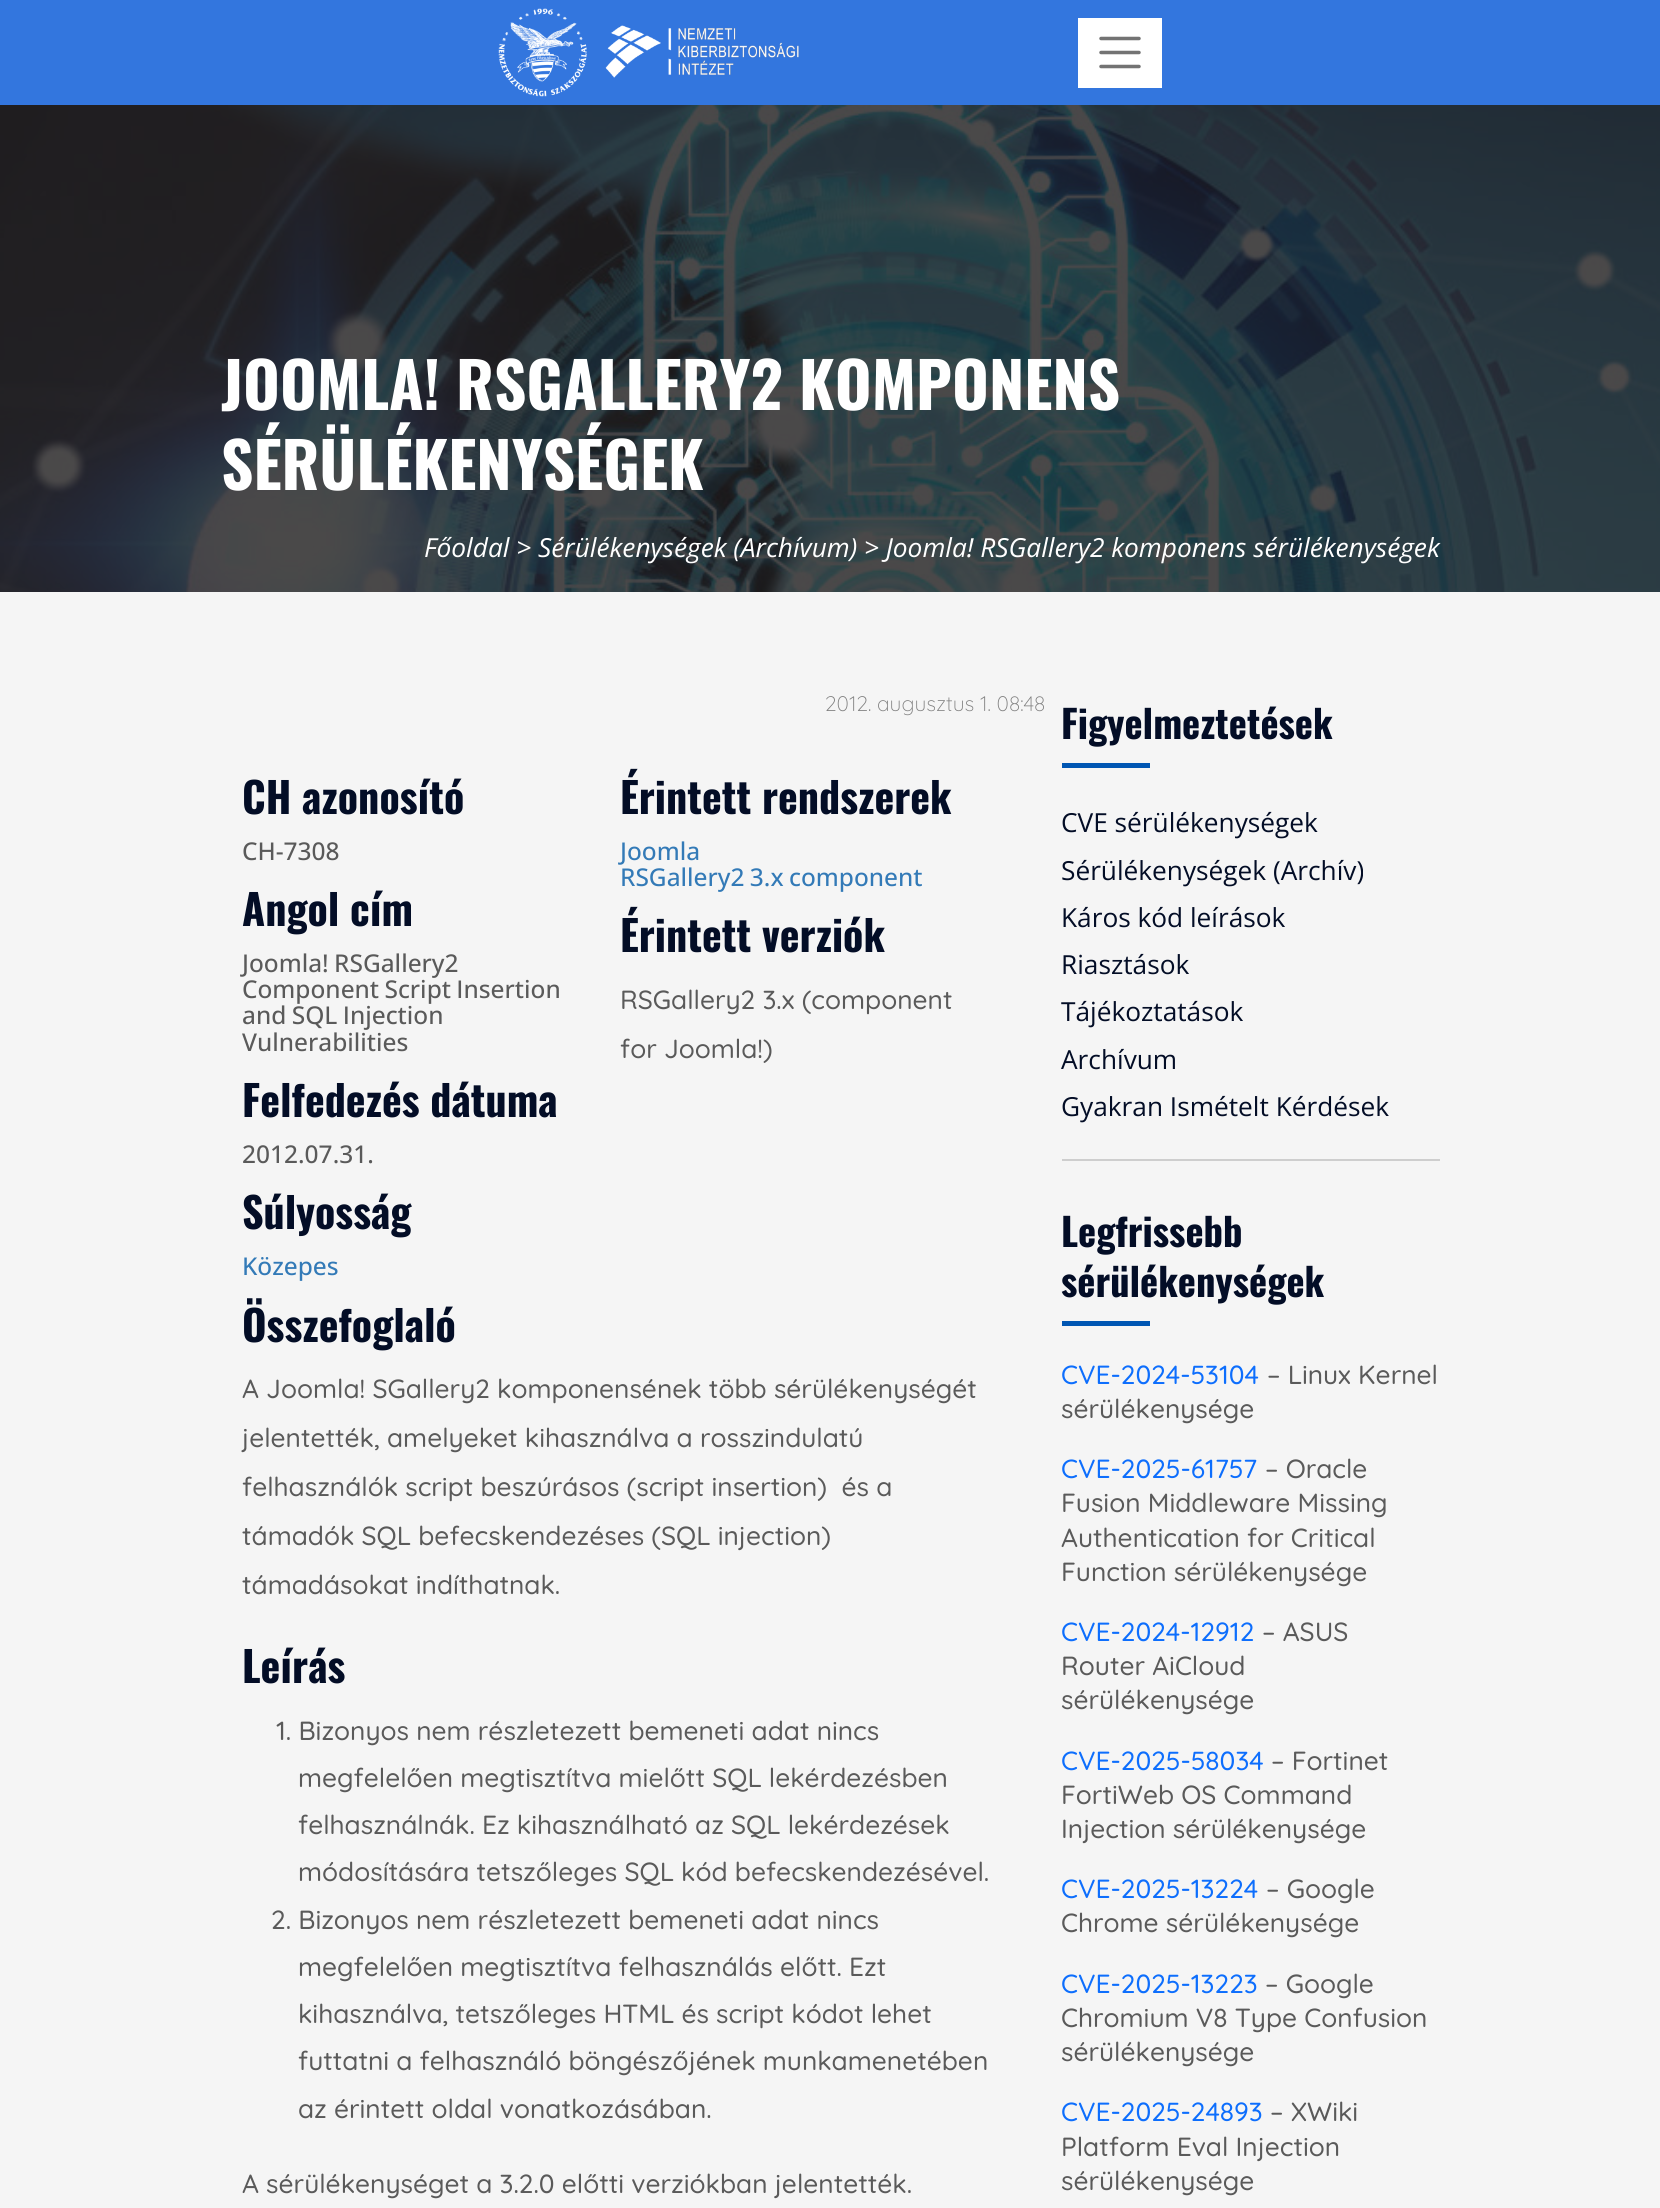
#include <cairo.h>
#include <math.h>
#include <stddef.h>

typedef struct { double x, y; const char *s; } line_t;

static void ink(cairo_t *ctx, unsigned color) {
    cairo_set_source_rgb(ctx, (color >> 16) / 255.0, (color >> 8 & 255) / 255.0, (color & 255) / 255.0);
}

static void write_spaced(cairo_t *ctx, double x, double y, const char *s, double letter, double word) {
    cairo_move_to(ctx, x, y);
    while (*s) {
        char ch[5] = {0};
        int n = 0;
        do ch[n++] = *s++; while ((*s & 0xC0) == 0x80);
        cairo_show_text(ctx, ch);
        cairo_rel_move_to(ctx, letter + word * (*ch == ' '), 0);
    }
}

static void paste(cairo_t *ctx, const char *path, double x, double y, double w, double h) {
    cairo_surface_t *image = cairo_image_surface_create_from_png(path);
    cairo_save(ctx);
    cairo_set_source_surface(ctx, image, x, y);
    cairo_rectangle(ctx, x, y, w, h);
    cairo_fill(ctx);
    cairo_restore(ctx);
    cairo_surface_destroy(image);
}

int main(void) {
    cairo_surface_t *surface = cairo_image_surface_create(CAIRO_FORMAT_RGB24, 1660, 2208);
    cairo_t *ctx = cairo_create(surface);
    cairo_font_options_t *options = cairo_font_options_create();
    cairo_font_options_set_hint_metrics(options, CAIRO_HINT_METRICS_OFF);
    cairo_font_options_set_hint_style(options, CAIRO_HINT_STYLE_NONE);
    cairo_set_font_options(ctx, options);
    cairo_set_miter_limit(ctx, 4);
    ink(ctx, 0xFFFFFF);
    cairo_paint(ctx);
    ink(ctx, 0x3376DE);
    cairo_rectangle(ctx, 0, 0, 1660, 105);
    cairo_fill(ctx);
    paste(ctx, "media/1.png", 498, 8, 301, 89);
    ink(ctx, 0xFFFFFF);
    cairo_rectangle(ctx, 1078, 18, 84, 70);
    cairo_fill(ctx);
    cairo_new_path(ctx);
    cairo_move_to(ctx, 1101, 38.5);
    cairo_line_to(ctx, 1139, 38.5);
    cairo_move_to(ctx, 1101, 52.5);
    cairo_line_to(ctx, 1139, 52.5);
    cairo_move_to(ctx, 1101, 66.5);
    cairo_line_to(ctx, 1139, 66.5);
    ink(ctx, 0x737373);
    cairo_set_line_width(ctx, 3.5);
    cairo_set_line_cap(ctx, CAIRO_LINE_CAP_ROUND);
    cairo_stroke(ctx);
    paste(ctx, "media/2.png", 0, 105, 1660, 487);
    cairo_select_font_face(ctx, "Oswald", CAIRO_FONT_SLANT_NORMAL, CAIRO_FONT_WEIGHT_BOLD);
    cairo_set_font_size(ctx, 63);
    ink(ctx, 0xFFFFFF);
    cairo_move_to(ctx, 221, 410);
    cairo_show_text(ctx, "JOOMLA! RSGALLERY2 KOMPONENS");
    cairo_move_to(ctx, 221, 490);
    cairo_show_text(ctx, "SÉRÜLÉKENYSÉGEK");
    cairo_select_font_face(ctx, "Open Sans", CAIRO_FONT_SLANT_ITALIC, CAIRO_FONT_WEIGHT_NORMAL);
    cairo_set_font_size(ctx, 26.25);
    cairo_move_to(ctx, 424, 557);
    cairo_show_text(ctx, "Főoldal > Sérülékenységek (Archívum) > Joomla! RSGallery2 komponens sérülékenységek");
    ink(ctx, 0xF5F5F5);
    cairo_rectangle(ctx, 0, 592, 1660, 1616);
    cairo_fill(ctx);
    cairo_select_font_face(ctx, "Quicksand Light", CAIRO_FONT_SLANT_NORMAL, CAIRO_FONT_WEIGHT_NORMAL);
    cairo_set_font_size(ctx, 21);
    ink(ctx, 0x808080);
    cairo_move_to(ctx, 825, 711);
    cairo_show_text(ctx, "2012. augusztus 1. 08:48");
    cairo_select_font_face(ctx, "Oswald", CAIRO_FONT_SLANT_NORMAL, CAIRO_FONT_WEIGHT_BOLD);
    cairo_set_font_size(ctx, 42);
    ink(ctx, 0x030D26);
    cairo_move_to(ctx, 242, 814);
    cairo_show_text(ctx, "CH azonosító");
    cairo_select_font_face(ctx, "Open Sans Medium", CAIRO_FONT_SLANT_NORMAL, CAIRO_FONT_WEIGHT_NORMAL);
    cairo_set_font_size(ctx, 24.5);
    ink(ctx, 0x5A5A5A);
    cairo_move_to(ctx, 242, 860);
    cairo_show_text(ctx, "CH-7308");
    cairo_select_font_face(ctx, "Oswald", CAIRO_FONT_SLANT_NORMAL, CAIRO_FONT_WEIGHT_BOLD);
    cairo_set_font_size(ctx, 42);
    ink(ctx, 0x030D26);
    cairo_move_to(ctx, 242, 926);
    cairo_show_text(ctx, "Angol cím");
    cairo_select_font_face(ctx, "Open Sans Medium", CAIRO_FONT_SLANT_NORMAL, CAIRO_FONT_WEIGHT_NORMAL);
    cairo_set_font_size(ctx, 24.5);
    ink(ctx, 0x5A5A5A);
    {
        static const line_t items[] = {
            {242, 972, "Joomla! RSGallery2"},
            {242, 998, "Component Script Insertion"},
            {242, 1024, "and SQL Injection"},
        };
        for (size_t i = 0; i < sizeof items / sizeof *items; i++) {
            write_spaced(ctx, items[i].x, items[i].y, items[i].s, 0, -1);
        }
    }
    cairo_move_to(ctx, 242, 1051);
    cairo_show_text(ctx, "Vulnerabilities");
    cairo_select_font_face(ctx, "Oswald", CAIRO_FONT_SLANT_NORMAL, CAIRO_FONT_WEIGHT_BOLD);
    cairo_set_font_size(ctx, 42);
    ink(ctx, 0x030D26);
    cairo_move_to(ctx, 242, 1117);
    cairo_show_text(ctx, "Felfedezés dátuma");
    cairo_select_font_face(ctx, "Open Sans Medium", CAIRO_FONT_SLANT_NORMAL, CAIRO_FONT_WEIGHT_NORMAL);
    cairo_set_font_size(ctx, 24.5);
    ink(ctx, 0x5A5A5A);
    cairo_move_to(ctx, 242, 1163);
    cairo_show_text(ctx, "2012.07.31.");
    cairo_select_font_face(ctx, "Oswald", CAIRO_FONT_SLANT_NORMAL, CAIRO_FONT_WEIGHT_BOLD);
    cairo_set_font_size(ctx, 42);
    ink(ctx, 0x030D26);
    cairo_move_to(ctx, 242, 1229);
    cairo_show_text(ctx, "Súlyosság");
    cairo_select_font_face(ctx, "Open Sans Medium", CAIRO_FONT_SLANT_NORMAL, CAIRO_FONT_WEIGHT_NORMAL);
    cairo_set_font_size(ctx, 24.5);
    ink(ctx, 0x337AB7);
    cairo_move_to(ctx, 242, 1275);
    cairo_show_text(ctx, "Közepes");
    cairo_select_font_face(ctx, "Oswald", CAIRO_FONT_SLANT_NORMAL, CAIRO_FONT_WEIGHT_BOLD);
    cairo_set_font_size(ctx, 42);
    ink(ctx, 0x030D26);
    cairo_move_to(ctx, 620, 814);
    cairo_show_text(ctx, "Érintett rendszerek");
    cairo_select_font_face(ctx, "Open Sans Medium", CAIRO_FONT_SLANT_NORMAL, CAIRO_FONT_WEIGHT_NORMAL);
    cairo_set_font_size(ctx, 24.5);
    ink(ctx, 0x337AB7);
    cairo_move_to(ctx, 620, 860);
    cairo_show_text(ctx, "Joomla");
    write_spaced(ctx, 620, 886, "RSGallery2 3.x component", 0, -1);
    cairo_select_font_face(ctx, "Oswald", CAIRO_FONT_SLANT_NORMAL, CAIRO_FONT_WEIGHT_BOLD);
    cairo_set_font_size(ctx, 42);
    ink(ctx, 0x030D26);
    cairo_move_to(ctx, 620, 952);
    cairo_show_text(ctx, "Érintett verziók");
    cairo_select_font_face(ctx, "Quicksand Medium", CAIRO_FONT_SLANT_NORMAL, CAIRO_FONT_WEIGHT_NORMAL);
    cairo_set_font_size(ctx, 26.25);
    ink(ctx, 0x5A5A5A);
    cairo_move_to(ctx, 620, 1009);
    cairo_show_text(ctx, "RSGallery2 3.x (component");
    cairo_move_to(ctx, 620, 1058);
    cairo_show_text(ctx, "for Joomla!)");
    cairo_select_font_face(ctx, "Oswald", CAIRO_FONT_SLANT_NORMAL, CAIRO_FONT_WEIGHT_BOLD);
    cairo_set_font_size(ctx, 42);
    ink(ctx, 0x030D26);
    cairo_move_to(ctx, 242, 1342);
    cairo_show_text(ctx, "Összefoglaló");
    cairo_select_font_face(ctx, "Quicksand Medium", CAIRO_FONT_SLANT_NORMAL, CAIRO_FONT_WEIGHT_NORMAL);
    cairo_set_font_size(ctx, 26.25);
    ink(ctx, 0x5A5A5A);
    {
        static const line_t items[] = {
            {242, 1398, "A Joomla! SGallery2 komponensének több sérülékenységét"},
            {242, 1447, "jelentették, amelyeket kihasználva a rosszindulatú"},
            {242, 1496, "felhasználók script beszúrásos (script insertion)  és a"},
            {242, 1545, "támadók SQL befecskendezéses (SQL injection)"},
            {242, 1594, "támadásokat indíthatnak."},
        };
        for (size_t i = 0; i < sizeof items / sizeof *items; i++) {
            cairo_move_to(ctx, items[i].x, items[i].y);
            cairo_show_text(ctx, items[i].s);
        }
    }
    cairo_select_font_face(ctx, "Oswald", CAIRO_FONT_SLANT_NORMAL, CAIRO_FONT_WEIGHT_BOLD);
    cairo_set_font_size(ctx, 42);
    ink(ctx, 0x030D26);
    cairo_move_to(ctx, 242, 1683);
    cairo_show_text(ctx, "Leírás");
    cairo_select_font_face(ctx, "Quicksand Medium", CAIRO_FONT_SLANT_NORMAL, CAIRO_FONT_WEIGHT_NORMAL);
    cairo_set_font_size(ctx, 26.25);
    ink(ctx, 0x5A5A5A);
    {
        static const line_t items[] = {
            {276, 1740, "1. Bizonyos nem részletezett bemeneti adat nincs"},
            {298, 1787, "megfelelően megtisztítva mielőtt SQL lekérdezésben"},
            {298, 1834, "felhasználnák. Ez kihasználható az SQL lekérdezések"},
            {298, 1881, "módosítására tetszőleges SQL kód befecskendezésével."},
            {271, 1929, "2. Bizonyos nem részletezett bemeneti adat nincs"},
            {298, 1976, "megfelelően megtisztítva felhasználás előtt. Ezt"},
            {298, 2023, "kihasználva, tetszőleges HTML és script kódot lehet"},
            {298, 2070, "futtatni a felhasználó böngészőjének munkamenetében"},
            {298, 2118, "az érintett oldal vonatkozásában."},
            {242, 2193, "A sérülékenységet a 3.2.0 előtti verziókban jelentették."},
        };
        for (size_t i = 0; i < sizeof items / sizeof *items; i++) {
            cairo_move_to(ctx, items[i].x, items[i].y);
            cairo_show_text(ctx, items[i].s);
        }
    }
    cairo_select_font_face(ctx, "Oswald", CAIRO_FONT_SLANT_NORMAL, CAIRO_FONT_WEIGHT_BOLD);
    cairo_set_font_size(ctx, 38.5);
    ink(ctx, 0x030D26);
    cairo_move_to(ctx, 1061, 739);
    cairo_show_text(ctx, "Figyelmeztetések");
    ink(ctx, 0x0056B3);
    cairo_rectangle(ctx, 1062, 763, 88, 5);
    cairo_fill(ctx);
    cairo_select_font_face(ctx, "Open Sans", CAIRO_FONT_SLANT_NORMAL, CAIRO_FONT_WEIGHT_NORMAL);
    cairo_set_font_size(ctx, 26.25);
    ink(ctx, 0x030D26);
    {
        static const line_t items[] = {
            {1061, 832, "CVE sérülékenységek"},
            {1061, 880, "Sérülékenységek (Archív)"},
            {1061, 927, "Káros kód leírások"},
            {1061, 974, "Riasztások"},
            {1061, 1021, "Tájékoztatások"},
            {1061, 1069, "Archívum"},
            {1061, 1116, "Gyakran Ismételt Kérdések"},
        };
        for (size_t i = 0; i < sizeof items / sizeof *items; i++) {
            cairo_move_to(ctx, items[i].x, items[i].y);
            cairo_show_text(ctx, items[i].s);
        }
    }
    ink(ctx, 0xCECECE);
    cairo_rectangle(ctx, 1062, 1159, 378, 2);
    cairo_fill(ctx);
    cairo_select_font_face(ctx, "Oswald", CAIRO_FONT_SLANT_NORMAL, CAIRO_FONT_WEIGHT_BOLD);
    cairo_set_font_size(ctx, 38.5);
    ink(ctx, 0x030D26);
    cairo_move_to(ctx, 1061, 1247);
    cairo_show_text(ctx, "Legfrissebb");
    cairo_move_to(ctx, 1061, 1297);
    cairo_show_text(ctx, "sérülékenységek");
    ink(ctx, 0x0056B3);
    cairo_rectangle(ctx, 1062, 1321, 88, 5);
    cairo_fill(ctx);
    cairo_select_font_face(ctx, "Quicksand Medium", CAIRO_FONT_SLANT_NORMAL, CAIRO_FONT_WEIGHT_NORMAL);
    cairo_set_font_size(ctx, 26.25);
    ink(ctx, 0x0D6EFD);
    cairo_move_to(ctx, 1061, 1384);
    cairo_show_text(ctx, "CVE-2024-53104");
    ink(ctx, 0x5A5A5A);
    cairo_move_to(ctx, 1267, 1384);
    cairo_show_text(ctx, "– Linux Kernel");
    cairo_move_to(ctx, 1061, 1418);
    cairo_show_text(ctx, "sérülékenysége");
    ink(ctx, 0x0D6EFD);
    cairo_move_to(ctx, 1061, 1478);
    cairo_show_text(ctx, "CVE-2025-61757");
    ink(ctx, 0x5A5A5A);
    {
        static const line_t items[] = {
            {1265, 1478, "– Oracle"},
            {1061, 1512, "Fusion Middleware Missing"},
            {1061, 1547, "Authentication for Critical"},
            {1061, 1581, "Function sérülékenysége"},
        };
        for (size_t i = 0; i < sizeof items / sizeof *items; i++) {
            cairo_move_to(ctx, items[i].x, items[i].y);
            cairo_show_text(ctx, items[i].s);
        }
    }
    ink(ctx, 0x0D6EFD);
    cairo_move_to(ctx, 1061, 1641);
    cairo_show_text(ctx, "CVE-2024-12912");
    ink(ctx, 0x5A5A5A);
    {
        static const line_t items[] = {
            {1262, 1641, "– ASUS"},
            {1061, 1675, "Router AiCloud"},
            {1061, 1709, "sérülékenysége"},
        };
        for (size_t i = 0; i < sizeof items / sizeof *items; i++) {
            cairo_move_to(ctx, items[i].x, items[i].y);
            cairo_show_text(ctx, items[i].s);
        }
    }
    ink(ctx, 0x0D6EFD);
    cairo_move_to(ctx, 1061, 1770);
    cairo_show_text(ctx, "CVE-2025-58034");
    ink(ctx, 0x5A5A5A);
    {
        static const line_t items[] = {
            {1271, 1770, "– Fortinet"},
            {1061, 1804, "FortiWeb OS Command"},
            {1061, 1838, "Injection sérülékenysége"},
        };
        for (size_t i = 0; i < sizeof items / sizeof *items; i++) {
            cairo_move_to(ctx, items[i].x, items[i].y);
            cairo_show_text(ctx, items[i].s);
        }
    }
    ink(ctx, 0x0D6EFD);
    cairo_move_to(ctx, 1061, 1898);
    cairo_show_text(ctx, "CVE-2025-13224");
    ink(ctx, 0x5A5A5A);
    cairo_move_to(ctx, 1266, 1898);
    cairo_show_text(ctx, "– Google");
    cairo_move_to(ctx, 1061, 1932);
    cairo_show_text(ctx, "Chrome sérülékenysége");
    ink(ctx, 0x0D6EFD);
    cairo_move_to(ctx, 1061, 1993);
    cairo_show_text(ctx, "CVE-2025-13223");
    ink(ctx, 0x5A5A5A);
    {
        static const line_t items[] = {
            {1265, 1993, "– Google"},
            {1061, 2027, "Chromium V8 Type Confusion"},
            {1061, 2061, "sérülékenysége"},
        };
        for (size_t i = 0; i < sizeof items / sizeof *items; i++) {
            cairo_move_to(ctx, items[i].x, items[i].y);
            cairo_show_text(ctx, items[i].s);
        }
    }
    ink(ctx, 0x0D6EFD);
    cairo_move_to(ctx, 1061, 2121);
    cairo_show_text(ctx, "CVE-2025-24893");
    ink(ctx, 0x5A5A5A);
    {
        static const line_t items[] = {
            {1270, 2121, "– XWiki"},
            {1061, 2156, "Platform Eval Injection"},
            {1061, 2190, "sérülékenysége"},
        };
        for (size_t i = 0; i < sizeof items / sizeof *items; i++) {
            cairo_move_to(ctx, items[i].x, items[i].y);
            cairo_show_text(ctx, items[i].s);
        }
    }
    cairo_surface_write_to_png(surface, "image.png");
    cairo_font_options_destroy(options);
    cairo_destroy(ctx);
    cairo_surface_destroy(surface);
    return 0;
}
